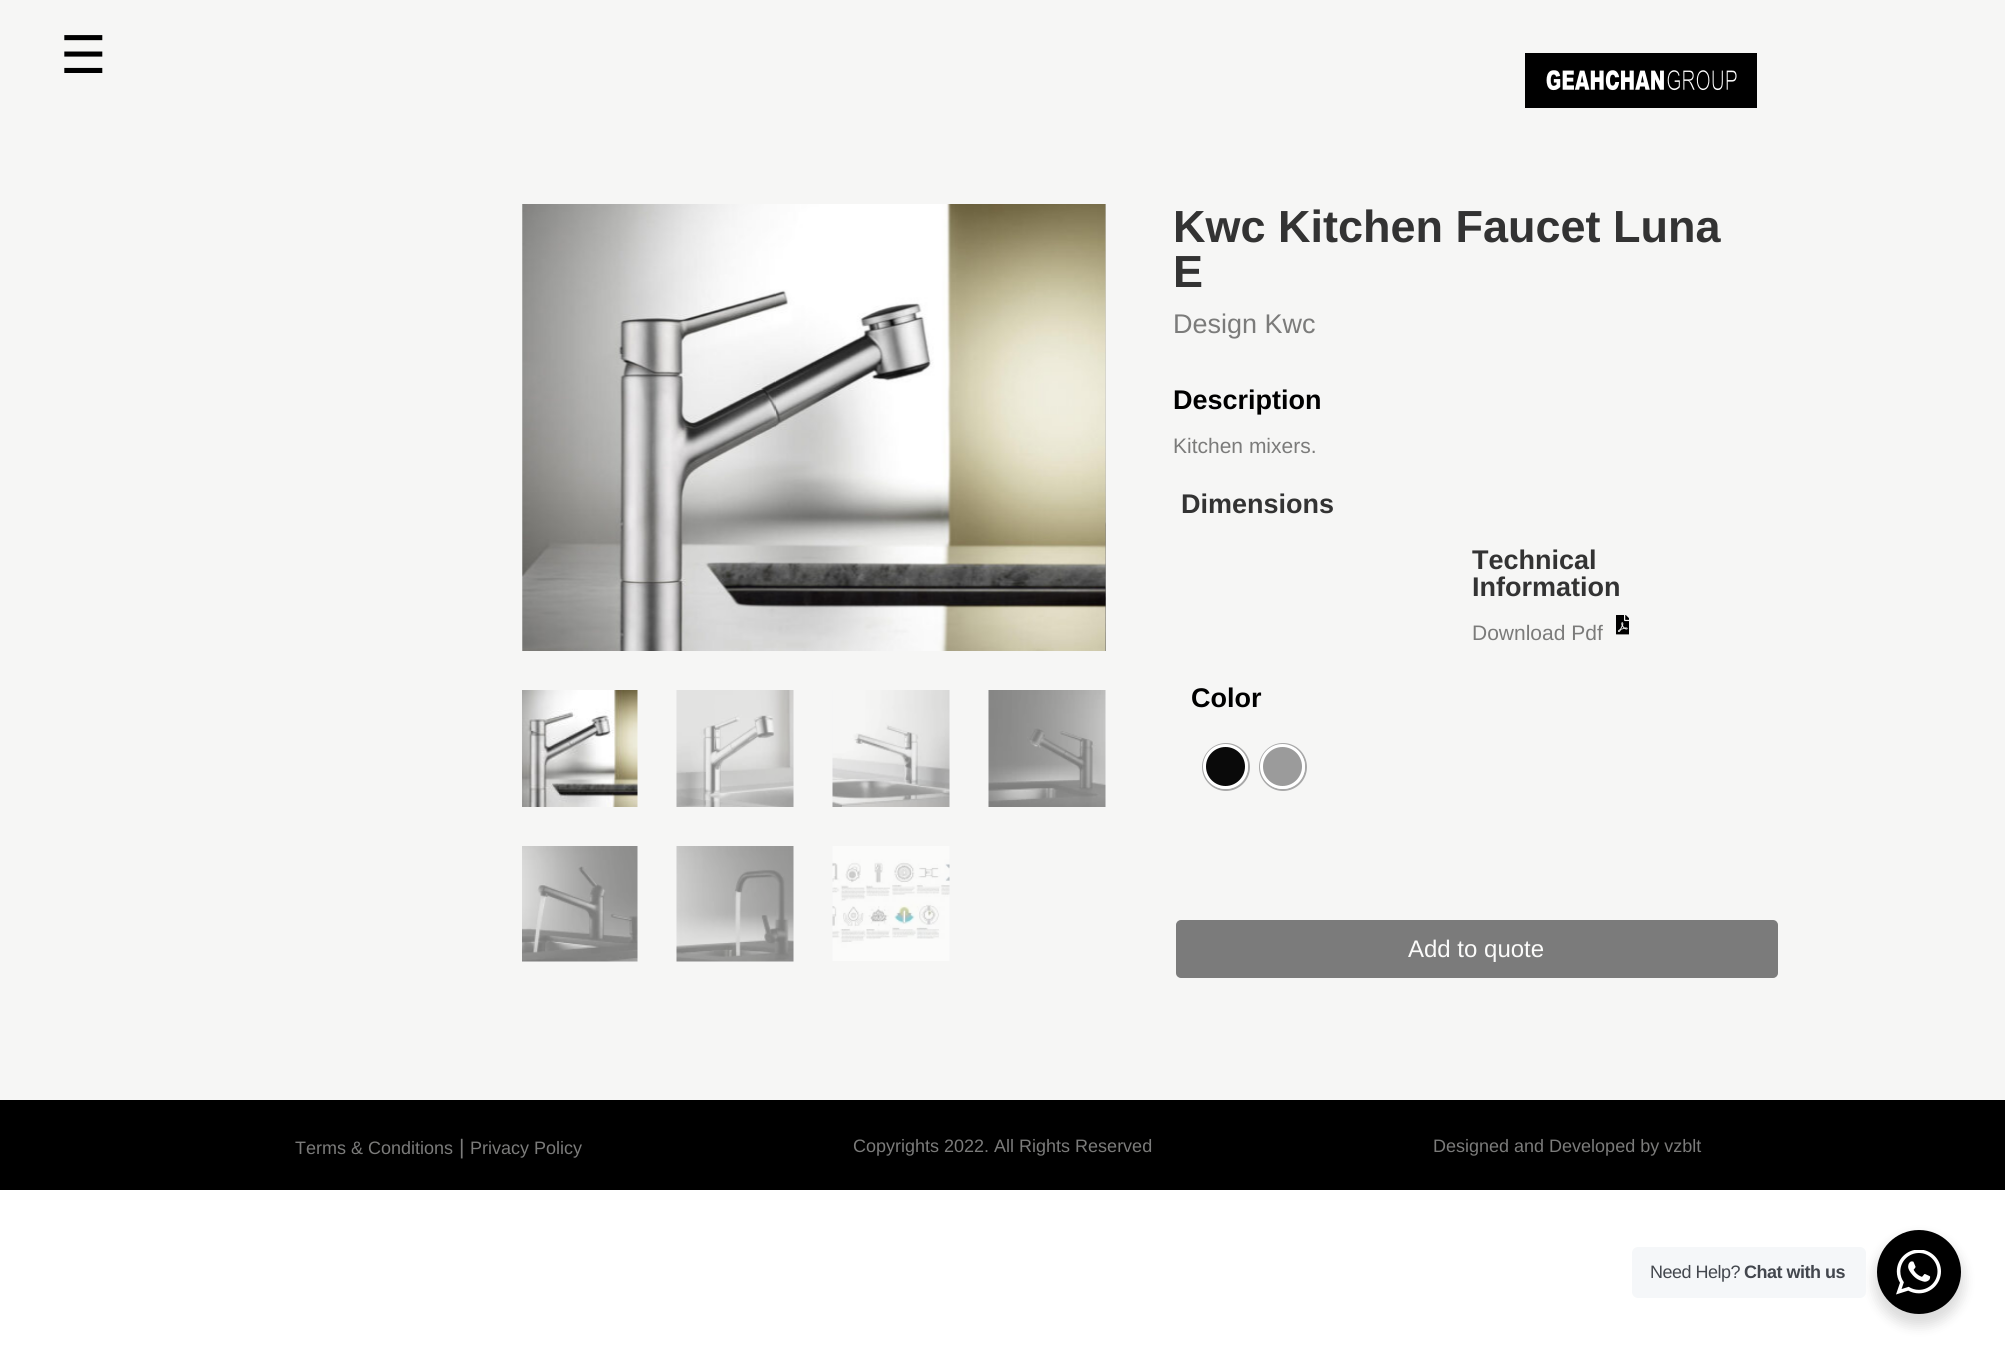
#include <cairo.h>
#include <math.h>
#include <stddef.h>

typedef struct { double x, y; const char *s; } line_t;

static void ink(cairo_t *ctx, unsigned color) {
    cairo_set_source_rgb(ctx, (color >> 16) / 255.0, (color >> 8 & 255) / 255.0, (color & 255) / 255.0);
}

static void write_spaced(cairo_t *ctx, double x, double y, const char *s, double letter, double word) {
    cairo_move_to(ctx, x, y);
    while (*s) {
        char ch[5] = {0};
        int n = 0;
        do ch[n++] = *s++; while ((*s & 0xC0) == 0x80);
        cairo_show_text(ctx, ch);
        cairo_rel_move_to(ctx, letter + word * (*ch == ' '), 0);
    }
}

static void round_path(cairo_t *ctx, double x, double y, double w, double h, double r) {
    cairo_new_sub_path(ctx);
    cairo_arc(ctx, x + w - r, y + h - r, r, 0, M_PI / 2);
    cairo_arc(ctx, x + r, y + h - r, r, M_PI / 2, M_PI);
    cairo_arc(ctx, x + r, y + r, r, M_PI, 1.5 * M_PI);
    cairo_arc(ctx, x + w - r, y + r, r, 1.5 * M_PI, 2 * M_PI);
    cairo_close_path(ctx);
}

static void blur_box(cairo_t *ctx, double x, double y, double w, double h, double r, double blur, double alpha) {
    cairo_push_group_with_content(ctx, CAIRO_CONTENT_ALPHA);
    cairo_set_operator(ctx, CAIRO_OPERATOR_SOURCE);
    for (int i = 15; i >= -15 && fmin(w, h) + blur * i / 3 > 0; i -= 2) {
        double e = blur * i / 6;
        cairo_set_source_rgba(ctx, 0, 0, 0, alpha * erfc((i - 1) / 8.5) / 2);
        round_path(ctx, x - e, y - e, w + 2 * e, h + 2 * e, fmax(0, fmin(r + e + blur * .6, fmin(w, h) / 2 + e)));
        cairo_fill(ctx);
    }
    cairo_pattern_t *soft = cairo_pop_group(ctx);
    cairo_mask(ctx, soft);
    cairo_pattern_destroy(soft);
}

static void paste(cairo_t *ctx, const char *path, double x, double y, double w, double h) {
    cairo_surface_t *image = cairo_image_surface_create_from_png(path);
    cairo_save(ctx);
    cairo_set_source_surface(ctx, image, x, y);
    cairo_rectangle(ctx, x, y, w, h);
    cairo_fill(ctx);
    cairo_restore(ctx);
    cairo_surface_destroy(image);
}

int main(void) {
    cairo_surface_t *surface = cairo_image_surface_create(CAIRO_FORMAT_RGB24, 2005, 1359);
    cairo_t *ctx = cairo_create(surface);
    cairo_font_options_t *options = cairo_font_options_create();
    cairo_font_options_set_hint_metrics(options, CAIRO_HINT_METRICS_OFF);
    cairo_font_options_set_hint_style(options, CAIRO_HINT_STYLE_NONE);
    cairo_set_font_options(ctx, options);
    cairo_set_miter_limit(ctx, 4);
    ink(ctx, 0xFFFFFF);
    cairo_paint(ctx);
    ink(ctx, 0xF6F6F5);
    cairo_rectangle(ctx, 0, 0, 2005, 1100);
    cairo_fill(ctx);
    cairo_select_font_face(ctx, "DejaVu Sans", CAIRO_FONT_SLANT_NORMAL, CAIRO_FONT_WEIGHT_NORMAL);
    cairo_set_font_size(ctx, 52);
    ink(ctx, 0x000000);
    cairo_move_to(ctx, 60, 73);
    cairo_show_text(ctx, "☰");
    paste(ctx, "media/1.png", 1525, 53, 232, 55);
    paste(ctx, "media/2.png", 522, 204, 584, 447);
    paste(ctx, "media/3.png", 1105, 204, 1, 447);
    paste(ctx, "media/4.png", 522, 690, 116, 117);
    paste(ctx, "media/5.png", 676, 690, 118, 117);
    paste(ctx, "media/6.png", 832, 690, 118, 117);
    paste(ctx, "media/7.png", 988, 690, 118, 117);
    paste(ctx, "media/8.png", 522, 846, 116, 116);
    paste(ctx, "media/9.png", 676, 846, 118, 116);
    paste(ctx, "media/10.png", 832, 846, 118, 115);
    cairo_select_font_face(ctx, "Liberation Sans", CAIRO_FONT_SLANT_NORMAL, CAIRO_FONT_WEIGHT_BOLD);
    cairo_set_font_size(ctx, 45);
    ink(ctx, 0x333333);
    cairo_move_to(ctx, 1173, 242);
    cairo_show_text(ctx, "Kwc Kitchen Faucet Luna");
    cairo_move_to(ctx, 1173, 287);
    cairo_show_text(ctx, "E");
    cairo_select_font_face(ctx, "Liberation Sans", CAIRO_FONT_SLANT_NORMAL, CAIRO_FONT_WEIGHT_NORMAL);
    cairo_set_font_size(ctx, 27);
    ink(ctx, 0x7B7B7A);
    cairo_move_to(ctx, 1173, 333);
    cairo_show_text(ctx, "Design Kwc");
    cairo_select_font_face(ctx, "Liberation Sans", CAIRO_FONT_SLANT_NORMAL, CAIRO_FONT_WEIGHT_BOLD);
    ink(ctx, 0x000000);
    cairo_move_to(ctx, 1173, 409);
    cairo_show_text(ctx, "Description");
    cairo_select_font_face(ctx, "Liberation Sans", CAIRO_FONT_SLANT_NORMAL, CAIRO_FONT_WEIGHT_NORMAL);
    cairo_set_font_size(ctx, 21);
    ink(ctx, 0x7B7B7A);
    cairo_move_to(ctx, 1173, 453);
    cairo_show_text(ctx, "Kitchen mixers.");
    cairo_select_font_face(ctx, "Liberation Sans", CAIRO_FONT_SLANT_NORMAL, CAIRO_FONT_WEIGHT_BOLD);
    cairo_set_font_size(ctx, 27);
    ink(ctx, 0x333333);
    {
        static const line_t items[] = {
            {1181, 513, "Dimensions"},
            {1472, 569, "Technical"},
            {1472, 596, "Information"},
        };
        for (size_t i = 0; i < sizeof items / sizeof *items; i++) {
            cairo_move_to(ctx, items[i].x, items[i].y);
            cairo_show_text(ctx, items[i].s);
        }
    }
    cairo_select_font_face(ctx, "Liberation Sans", CAIRO_FONT_SLANT_NORMAL, CAIRO_FONT_WEIGHT_NORMAL);
    cairo_set_font_size(ctx, 21);
    ink(ctx, 0x7B7B7A);
    cairo_move_to(ctx, 1472, 640);
    cairo_show_text(ctx, "Download Pdf");
    paste(ctx, "media/11.png", 1616, 615, 13, 20);
    cairo_select_font_face(ctx, "Liberation Sans", CAIRO_FONT_SLANT_NORMAL, CAIRO_FONT_WEIGHT_BOLD);
    cairo_set_font_size(ctx, 27);
    ink(ctx, 0x000000);
    cairo_move_to(ctx, 1191, 707);
    cairo_show_text(ctx, "Color");
    cairo_new_path(ctx);
    cairo_arc(ctx, 1226, 767, 23, 0, 2 * M_PI);
    ink(ctx, 0xA8A8A8);
    cairo_stroke(ctx);
    ink(ctx, 0xFFFFFF);
    cairo_arc(ctx, 1225.5, 766.5, 22.5, 0, 2 * M_PI);
    cairo_fill(ctx);
    ink(ctx, 0x0A0A0A);
    cairo_arc(ctx, 1225.5, 766.5, 19.5, 0, 2 * M_PI);
    cairo_fill(ctx);
    cairo_arc(ctx, 1283, 767, 23, 0, 2 * M_PI);
    ink(ctx, 0xA8A8A8);
    cairo_stroke(ctx);
    ink(ctx, 0xFFFFFF);
    cairo_arc(ctx, 1282.5, 766.5, 22.5, 0, 2 * M_PI);
    cairo_fill(ctx);
    ink(ctx, 0x9B9B9B);
    cairo_arc(ctx, 1282.5, 766.5, 19.5, 0, 2 * M_PI);
    cairo_fill(ctx);
    ink(ctx, 0x7B7B7B);
    round_path(ctx, 1177, 921, 600, 56, 4);
    cairo_fill_preserve(ctx);
    cairo_stroke(ctx);
    cairo_select_font_face(ctx, "Liberation Sans", CAIRO_FONT_SLANT_NORMAL, CAIRO_FONT_WEIGHT_NORMAL);
    cairo_set_font_size(ctx, 24);
    ink(ctx, 0xFBFBFA);
    cairo_move_to(ctx, 1408, 957);
    cairo_show_text(ctx, "Add to quote");
    ink(ctx, 0x000000);
    cairo_rectangle(ctx, 0, 1100, 2005, 90);
    cairo_fill(ctx);
    cairo_set_font_size(ctx, 18);
    ink(ctx, 0x7B7B7A);
    cairo_move_to(ctx, 295, 1154);
    cairo_show_text(ctx, "Terms & Conditions");
    cairo_set_font_size(ctx, 21);
    cairo_move_to(ctx, 459, 1154);
    cairo_show_text(ctx, "|");
    cairo_set_font_size(ctx, 18);
    {
        static const line_t items[] = {
            {470, 1154, "Privacy Policy"},
            {853, 1152, "Copyrights 2022. All Rights Reserved"},
            {1433, 1152, "Designed and Developed by vzblt"},
        };
        for (size_t i = 0; i < sizeof items / sizeof *items; i++) {
            cairo_move_to(ctx, items[i].x, items[i].y);
            cairo_show_text(ctx, items[i].s);
        }
    }
    ink(ctx, 0x000000);
    blur_box(ctx, 1874, 1236, 90, 90, 45, 6, 0.14);
    ink(ctx, 0xF5F7F9);
    round_path(ctx, 1632, 1247, 234, 51, 6);
    cairo_fill(ctx);
    ink(ctx, 0x43474E);
    write_spaced(ctx, 1650, 1278, "Need Help?", -0.5, 0);
    cairo_select_font_face(ctx, "Liberation Sans", CAIRO_FONT_SLANT_NORMAL, CAIRO_FONT_WEIGHT_BOLD);
    write_spaced(ctx, 1744, 1278, "Chat with us", -0.5, 0);
    ink(ctx, 0x000000);
    cairo_new_path(ctx);
    cairo_arc(ctx, 1919, 1272, 42, 0, 2 * M_PI);
    cairo_fill(ctx);
    paste(ctx, "media/12.png", 1896, 1250, 45, 45);
    cairo_surface_write_to_png(surface, "image.png");
    cairo_font_options_destroy(options);
    cairo_destroy(ctx);
    cairo_surface_destroy(surface);
    return 0;
}
